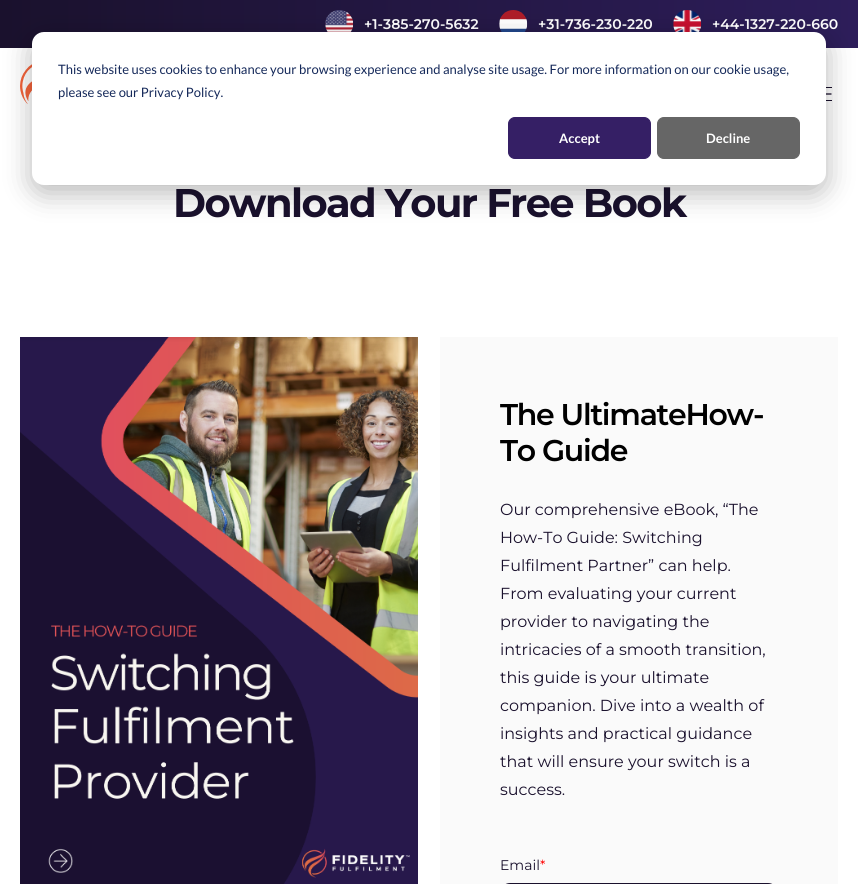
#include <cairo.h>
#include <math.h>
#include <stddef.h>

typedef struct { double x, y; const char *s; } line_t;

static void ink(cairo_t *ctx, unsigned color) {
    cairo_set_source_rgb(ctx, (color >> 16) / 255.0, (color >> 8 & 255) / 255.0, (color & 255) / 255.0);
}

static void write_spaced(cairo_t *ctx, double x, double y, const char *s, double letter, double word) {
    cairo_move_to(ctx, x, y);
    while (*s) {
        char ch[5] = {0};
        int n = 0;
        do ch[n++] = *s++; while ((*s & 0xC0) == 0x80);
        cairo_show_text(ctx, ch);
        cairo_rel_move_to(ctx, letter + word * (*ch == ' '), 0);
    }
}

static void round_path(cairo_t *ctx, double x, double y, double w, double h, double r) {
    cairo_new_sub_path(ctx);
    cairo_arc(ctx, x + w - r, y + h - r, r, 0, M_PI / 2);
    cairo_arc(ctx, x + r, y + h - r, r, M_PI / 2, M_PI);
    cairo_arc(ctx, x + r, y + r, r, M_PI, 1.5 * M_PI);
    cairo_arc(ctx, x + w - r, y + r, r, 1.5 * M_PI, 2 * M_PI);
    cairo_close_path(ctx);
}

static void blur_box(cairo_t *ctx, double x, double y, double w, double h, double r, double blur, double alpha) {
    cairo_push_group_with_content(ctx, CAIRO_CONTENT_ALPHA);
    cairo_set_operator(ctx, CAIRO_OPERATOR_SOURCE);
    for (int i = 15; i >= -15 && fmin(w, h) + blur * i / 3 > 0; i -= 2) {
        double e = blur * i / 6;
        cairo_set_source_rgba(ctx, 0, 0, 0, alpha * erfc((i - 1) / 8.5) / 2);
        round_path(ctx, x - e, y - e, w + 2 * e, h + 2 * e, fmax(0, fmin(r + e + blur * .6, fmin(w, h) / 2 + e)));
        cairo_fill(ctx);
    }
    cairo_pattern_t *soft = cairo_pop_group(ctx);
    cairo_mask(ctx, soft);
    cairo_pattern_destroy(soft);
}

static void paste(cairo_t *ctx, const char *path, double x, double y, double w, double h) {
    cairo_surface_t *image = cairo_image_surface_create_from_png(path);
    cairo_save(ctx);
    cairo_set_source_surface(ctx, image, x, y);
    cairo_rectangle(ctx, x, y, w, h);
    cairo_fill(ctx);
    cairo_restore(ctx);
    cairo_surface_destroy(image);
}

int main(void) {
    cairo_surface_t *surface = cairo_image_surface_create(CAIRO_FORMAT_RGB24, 858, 884);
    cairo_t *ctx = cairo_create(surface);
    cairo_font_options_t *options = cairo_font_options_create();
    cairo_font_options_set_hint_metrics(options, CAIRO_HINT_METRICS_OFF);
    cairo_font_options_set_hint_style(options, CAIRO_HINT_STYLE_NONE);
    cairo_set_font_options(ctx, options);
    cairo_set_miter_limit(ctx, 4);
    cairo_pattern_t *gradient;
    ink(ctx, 0xFFFFFF);
    cairo_paint(ctx);
    gradient = cairo_pattern_create_linear(0, 24, 858, 24);
    cairo_pattern_add_color_stop_rgba(gradient, 0, 0.102, 0.067, 0.176, 1);
    cairo_pattern_add_color_stop_rgba(gradient, 1, 0.176, 0.114, 0.353, 1);
    cairo_set_source(ctx, gradient);
    cairo_pattern_destroy(gradient);
    cairo_rectangle(ctx, 0, 0, 858, 48);
    cairo_fill(ctx);
    paste(ctx, "media/1.png", 325, 10, 28, 22);
    cairo_select_font_face(ctx, "Montserrat SemiBold", CAIRO_FONT_SLANT_NORMAL, CAIRO_FONT_WEIGHT_NORMAL);
    cairo_set_font_size(ctx, 14);
    ink(ctx, 0xFFFFFF);
    cairo_move_to(ctx, 364, 29);
    cairo_show_text(ctx, "+1-385-270-5632");
    paste(ctx, "media/2.png", 499, 10, 29, 22);
    cairo_move_to(ctx, 538, 29);
    cairo_show_text(ctx, "+31-736-230-220");
    paste(ctx, "media/3.png", 673, 10, 29, 22);
    cairo_move_to(ctx, 712, 29);
    cairo_show_text(ctx, "+44-1327-220-660");
    paste(ctx, "media/4.png", 20, 64, 12, 40);
    ink(ctx, 0x1A112D);
    cairo_rectangle(ctx, 826, 87, 6, 1);
    cairo_fill(ctx);
    cairo_new_path(ctx);
    cairo_move_to(ctx, 819, 94);
    cairo_line_to(ctx, 831.5, 94);
    cairo_set_line_width(ctx, 1.3);
    cairo_stroke(ctx);
    cairo_rectangle(ctx, 826, 100, 6, 1);
    cairo_fill(ctx);
    cairo_select_font_face(ctx, "Montserrat", CAIRO_FONT_SLANT_NORMAL, CAIRO_FONT_WEIGHT_BOLD);
    cairo_set_font_size(ctx, 40);
    write_spaced(ctx, 173, 217, "Download Your Free Book", -1.6, 0);
    paste(ctx, "media/5.png", 20, 337, 398, 547);
    ink(ctx, 0xFAFAFA);
    cairo_rectangle(ctx, 440, 337, 398, 547);
    cairo_fill(ctx);
    cairo_select_font_face(ctx, "Montserrat SemiBold", CAIRO_FONT_SLANT_NORMAL, CAIRO_FONT_WEIGHT_NORMAL);
    cairo_set_font_size(ctx, 30);
    ink(ctx, 0x000000);
    write_spaced(ctx, 500, 425, "The UltimateHow-", -1.25, 0);
    write_spaced(ctx, 500, 461, "To Guide", -1.25, 0);
    cairo_select_font_face(ctx, "Montserrat", CAIRO_FONT_SLANT_NORMAL, CAIRO_FONT_WEIGHT_NORMAL);
    cairo_set_font_size(ctx, 16);
    ink(ctx, 0x1A112D);
    {
        static const line_t items[] = {
            {500, 515, "Our comprehensive eBook, “The"},
            {500, 543, "How-To Guide: Switching"},
            {500, 571, "Fulfilment Partner” can help."},
            {500, 599, "From evaluating your current"},
            {500, 627, "provider to navigating the"},
            {500, 655, "intricacies of a smooth transition,"},
            {500, 683, "this guide is your ultimate"},
            {500, 711, "companion. Dive into a wealth of"},
            {500, 739, "insights and practical guidance"},
            {500, 767, "that will ensure your switch is a"},
            {500, 795, "success."},
        };
        for (size_t i = 0; i < sizeof items / sizeof *items; i++) {
            cairo_move_to(ctx, items[i].x, items[i].y);
            cairo_show_text(ctx, items[i].s);
        }
    }
    cairo_set_font_size(ctx, 14);
    cairo_move_to(ctx, 500, 870);
    cairo_show_text(ctx, "Email");
    ink(ctx, 0xFF0000);
    cairo_move_to(ctx, 540, 870);
    cairo_show_text(ctx, "*");
    round_path(ctx, 500.5, 883.5, 277, 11, 9.5);
    ink(ctx, 0x1A112D);
    cairo_set_line_width(ctx, 1);
    cairo_stroke(ctx);
    ink(ctx, 0x000000);
    blur_box(ctx, 32, 40, 794, 153, 12, 14, 0.28);
    ink(ctx, 0xFFFFFF);
    round_path(ctx, 32, 32, 794, 153, 12);
    cairo_fill(ctx);
    cairo_select_font_face(ctx, "Lato", CAIRO_FONT_SLANT_NORMAL, CAIRO_FONT_WEIGHT_NORMAL);
    cairo_set_font_size(ctx, 13);
    ink(ctx, 0x15295A);
    cairo_move_to(ctx, 58, 74);
    cairo_show_text(ctx, "This website uses cookies to enhance your browsing experience and analyse site usage. For more information on our cookie usage,");
    cairo_move_to(ctx, 58, 97);
    cairo_show_text(ctx, "please see our Privacy Policy.");
    ink(ctx, 0x351F65);
    round_path(ctx, 508.5, 117.5, 142, 41, 6.5);
    cairo_fill_preserve(ctx);
    cairo_stroke(ctx);
    cairo_select_font_face(ctx, "Lato", CAIRO_FONT_SLANT_NORMAL, CAIRO_FONT_WEIGHT_BOLD);
    ink(ctx, 0xFFFFFF);
    cairo_move_to(ctx, 559, 143);
    cairo_show_text(ctx, "Accept");
    ink(ctx, 0x666666);
    round_path(ctx, 657.5, 117.5, 142, 41, 6.5);
    cairo_fill_preserve(ctx);
    cairo_stroke(ctx);
    ink(ctx, 0xFFFFFF);
    cairo_move_to(ctx, 706, 143);
    cairo_show_text(ctx, "Decline");
    cairo_surface_write_to_png(surface, "image.png");
    cairo_font_options_destroy(options);
    cairo_destroy(ctx);
    cairo_surface_destroy(surface);
    return 0;
}
